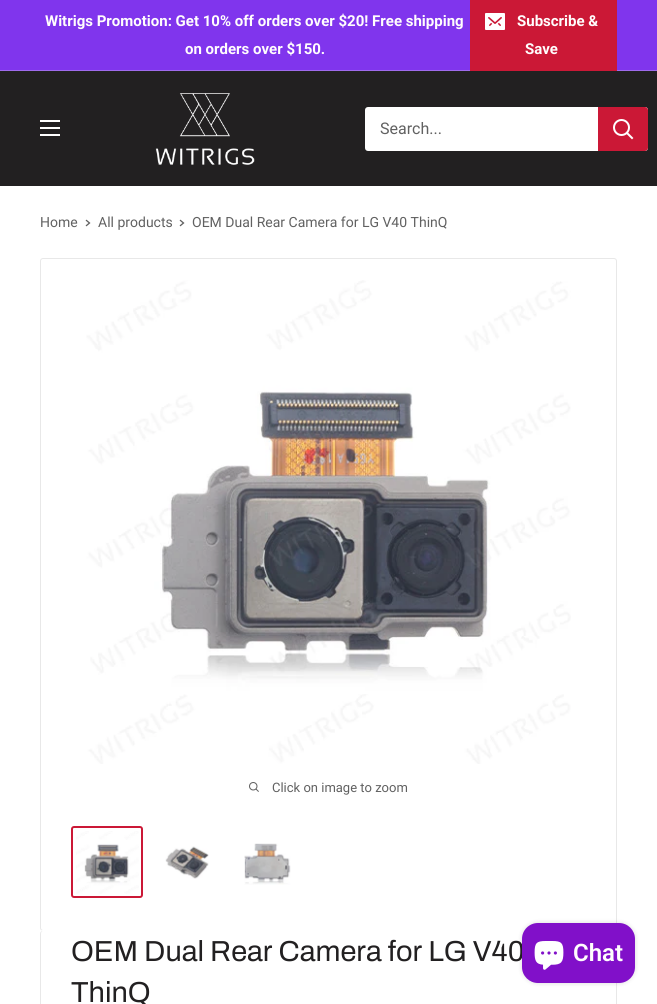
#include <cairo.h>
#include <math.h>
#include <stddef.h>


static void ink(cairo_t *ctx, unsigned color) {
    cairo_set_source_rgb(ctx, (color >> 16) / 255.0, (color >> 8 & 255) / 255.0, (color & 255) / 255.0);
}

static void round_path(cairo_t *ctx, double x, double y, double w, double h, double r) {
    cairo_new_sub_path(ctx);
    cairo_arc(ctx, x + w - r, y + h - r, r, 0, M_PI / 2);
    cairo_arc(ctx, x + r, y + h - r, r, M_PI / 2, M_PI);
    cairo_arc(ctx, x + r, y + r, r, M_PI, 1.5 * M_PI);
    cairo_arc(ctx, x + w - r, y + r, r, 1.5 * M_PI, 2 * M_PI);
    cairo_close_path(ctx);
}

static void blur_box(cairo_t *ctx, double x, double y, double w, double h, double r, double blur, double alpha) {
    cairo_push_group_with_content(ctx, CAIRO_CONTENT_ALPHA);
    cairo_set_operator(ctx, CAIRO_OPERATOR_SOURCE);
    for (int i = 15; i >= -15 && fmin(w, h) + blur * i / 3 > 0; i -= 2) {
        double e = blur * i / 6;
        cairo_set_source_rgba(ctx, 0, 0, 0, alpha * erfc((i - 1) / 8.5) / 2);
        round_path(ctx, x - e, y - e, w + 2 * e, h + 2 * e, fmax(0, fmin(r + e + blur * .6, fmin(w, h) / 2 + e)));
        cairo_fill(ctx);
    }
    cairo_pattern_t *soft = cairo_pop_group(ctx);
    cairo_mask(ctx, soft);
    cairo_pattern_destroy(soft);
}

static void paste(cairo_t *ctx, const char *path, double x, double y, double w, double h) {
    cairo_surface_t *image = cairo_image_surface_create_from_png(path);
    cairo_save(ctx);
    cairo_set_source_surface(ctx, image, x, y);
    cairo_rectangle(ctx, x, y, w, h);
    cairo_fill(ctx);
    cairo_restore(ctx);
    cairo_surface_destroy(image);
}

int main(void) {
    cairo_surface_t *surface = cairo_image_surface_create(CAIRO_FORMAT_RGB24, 657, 1004);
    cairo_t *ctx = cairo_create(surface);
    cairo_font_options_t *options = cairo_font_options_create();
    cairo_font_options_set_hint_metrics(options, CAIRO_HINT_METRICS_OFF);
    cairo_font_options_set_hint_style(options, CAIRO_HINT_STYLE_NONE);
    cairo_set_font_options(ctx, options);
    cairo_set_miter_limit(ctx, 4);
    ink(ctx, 0xFFFFFF);
    cairo_paint(ctx);
    ink(ctx, 0x8035ED);
    cairo_rectangle(ctx, 0, 0, 657, 70);
    cairo_fill(ctx);
    ink(ctx, 0x9F6BEC);
    cairo_rectangle(ctx, 0, 70, 657, 1);
    cairo_fill(ctx);
    cairo_select_font_face(ctx, "Roboto", CAIRO_FONT_SLANT_NORMAL, CAIRO_FONT_WEIGHT_BOLD);
    cairo_set_font_size(ctx, 15);
    ink(ctx, 0xFFFDFD);
    cairo_move_to(ctx, 45, 26);
    cairo_show_text(ctx, "Witrigs Promotion: Get 10% off orders over $20! Free shipping");
    cairo_move_to(ctx, 185, 54);
    cairo_show_text(ctx, "on orders over $150.");
    ink(ctx, 0xCB1836);
    cairo_rectangle(ctx, 470, 0, 147, 71);
    cairo_fill(ctx);
    paste(ctx, "media/1.png", 485, 13, 20, 17);
    ink(ctx, 0xFFFDFD);
    cairo_move_to(ctx, 517, 26);
    cairo_show_text(ctx, "Subscribe &");
    cairo_move_to(ctx, 525, 54);
    cairo_show_text(ctx, "Save");
    ink(ctx, 0x222021);
    cairo_rectangle(ctx, 0, 71, 657, 115);
    cairo_fill(ctx);
    paste(ctx, "media/2.png", 40, 120, 20, 16);
    paste(ctx, "media/3.png", 155, 93, 100, 72);
    ink(ctx, 0xFFFFFF);
    round_path(ctx, 365, 107, 283, 44, 3);
    cairo_fill(ctx);
    cairo_select_font_face(ctx, "Roboto", CAIRO_FONT_SLANT_NORMAL, CAIRO_FONT_WEIGHT_NORMAL);
    cairo_set_font_size(ctx, 16);
    ink(ctx, 0x616161);
    cairo_move_to(ctx, 380, 134);
    cairo_show_text(ctx, "Search...");
    ink(ctx, 0xCB1836);
    cairo_new_path(ctx);
    cairo_move_to(ctx, 598, 107);
    cairo_line_to(ctx, 645, 107);
    cairo_curve_to(ctx, 646.5, 107, 648, 108.5, 648, 110);
    cairo_line_to(ctx, 648, 148);
    cairo_curve_to(ctx, 648, 149.5, 646.5, 151, 645, 151);
    cairo_line_to(ctx, 598, 151);
    cairo_close_path(ctx);
    cairo_fill(ctx);
    cairo_new_path(ctx);
    cairo_move_to(ctx, 632, 138);
    cairo_line_to(ctx, 627, 133);
    ink(ctx, 0xFFFFFF);
    cairo_set_line_cap(ctx, CAIRO_LINE_CAP_SQUARE);
    cairo_stroke(ctx);
    cairo_arc(ctx, 621.5, 127.5, 7.5, 0, 2 * M_PI);
    cairo_set_line_cap(ctx, CAIRO_LINE_CAP_BUTT);
    cairo_stroke(ctx);
    cairo_set_font_size(ctx, 14);
    ink(ctx, 0x616161);
    cairo_move_to(ctx, 40, 227);
    cairo_show_text(ctx, "Home");
    cairo_new_path(ctx);
    cairo_move_to(ctx, 86.5, 220.5);
    cairo_line_to(ctx, 89.5, 223);
    cairo_line_to(ctx, 86.5, 225.5);
    cairo_set_line_width(ctx, 1.3);
    cairo_set_line_cap(ctx, CAIRO_LINE_CAP_SQUARE);
    cairo_stroke(ctx);
    cairo_move_to(ctx, 98, 227);
    cairo_show_text(ctx, "All products");
    cairo_new_path(ctx);
    cairo_move_to(ctx, 180.5, 220.5);
    cairo_line_to(ctx, 183.5, 223);
    cairo_line_to(ctx, 180.5, 225.5);
    cairo_stroke(ctx);
    cairo_move_to(ctx, 192, 227);
    cairo_show_text(ctx, "OEM Dual Rear Camera for LG V40 ThinQ");
    round_path(ctx, 40.5, 258.5, 576, 672, 2.5);
    ink(ctx, 0xE8E8E8);
    cairo_set_line_width(ctx, 1);
    cairo_set_line_cap(ctx, CAIRO_LINE_CAP_BUTT);
    cairo_stroke(ctx);
    paste(ctx, "media/4.png", 86, 280, 485, 484);
    paste(ctx, "media/5.png", 249, 782, 10, 10);
    cairo_set_font_size(ctx, 13);
    ink(ctx, 0x616161);
    cairo_move_to(ctx, 272, 792);
    cairo_show_text(ctx, "Click on image to zoom");
    round_path(ctx, 72, 827, 70, 70, 2);
    ink(ctx, 0xCB1836);
    cairo_set_line_width(ctx, 2);
    cairo_stroke(ctx);
    paste(ctx, "media/6.png", 76, 831, 63, 63);
    paste(ctx, "media/7.png", 165, 846, 44, 33);
    paste(ctx, "media/8.png", 244, 843, 47, 42);
    ink(ctx, 0xFFFFFF);
    cairo_new_path(ctx);
    cairo_move_to(ctx, 43, 930);
    cairo_curve_to(ctx, 41, 930, 40, 932, 40, 934);
    cairo_curve_to(ctx, 40, 932, 41, 931, 43, 931);
    cairo_line_to(ctx, 614, 931);
    cairo_curve_to(ctx, 616, 931, 617, 932, 617, 934);
    cairo_curve_to(ctx, 617, 932, 616, 930, 614, 930);
    cairo_close_path(ctx);
    cairo_fill(ctx);
    ink(ctx, 0xE8E8E8);
    cairo_set_fill_rule(ctx, CAIRO_FILL_RULE_EVEN_ODD);
    cairo_new_path(ctx);
    cairo_move_to(ctx, 43, 931);
    cairo_line_to(ctx, 614, 931);
    cairo_curve_to(ctx, 616, 931, 617, 932, 617, 934);
    cairo_line_to(ctx, 617, 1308);
    cairo_curve_to(ctx, 617, 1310, 616, 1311, 614, 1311);
    cairo_line_to(ctx, 43, 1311);
    cairo_curve_to(ctx, 41, 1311, 40, 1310, 40, 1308);
    cairo_line_to(ctx, 40, 934);
    cairo_curve_to(ctx, 40, 932, 41, 931, 43, 931);
    cairo_close_path(ctx);
    cairo_move_to(ctx, 43, 931);
    cairo_line_to(ctx, 614, 931);
    cairo_curve_to(ctx, 615, 931, 616, 932, 616, 934);
    cairo_line_to(ctx, 616, 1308);
    cairo_curve_to(ctx, 616, 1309, 615, 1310, 614, 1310);
    cairo_line_to(ctx, 43, 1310);
    cairo_curve_to(ctx, 42, 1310, 41, 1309, 41, 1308);
    cairo_line_to(ctx, 41, 934);
    cairo_curve_to(ctx, 41, 932, 42, 931, 43, 931);
    cairo_close_path(ctx);
    cairo_fill(ctx);
    cairo_select_font_face(ctx, "Archivo", CAIRO_FONT_SLANT_NORMAL, CAIRO_FONT_WEIGHT_NORMAL);
    cairo_set_font_size(ctx, 29);
    ink(ctx, 0x222021);
    cairo_move_to(ctx, 71, 961);
    cairo_show_text(ctx, "OEM Dual Rear Camera for LG V40");
    cairo_move_to(ctx, 71, 1002);
    cairo_show_text(ctx, "ThinQ");
    ink(ctx, 0x000000);
    blur_box(ctx, 522, 923, 113, 60, 16, 2.5, 0.15);
    ink(ctx, 0x8110C9);
    round_path(ctx, 522, 923, 113, 60, 16);
    cairo_fill(ctx);
    paste(ctx, "media/9.png", 534, 941, 30, 29);
    cairo_select_font_face(ctx, "Roboto SemiBold", CAIRO_FONT_SLANT_NORMAL, CAIRO_FONT_WEIGHT_NORMAL);
    cairo_set_font_size(ctx, 24);
    ink(ctx, 0xFFFDFD);
    cairo_move_to(ctx, 573, 961);
    cairo_show_text(ctx, "Chat");
    cairo_surface_write_to_png(surface, "image.png");
    cairo_font_options_destroy(options);
    cairo_destroy(ctx);
    cairo_surface_destroy(surface);
    return 0;
}
